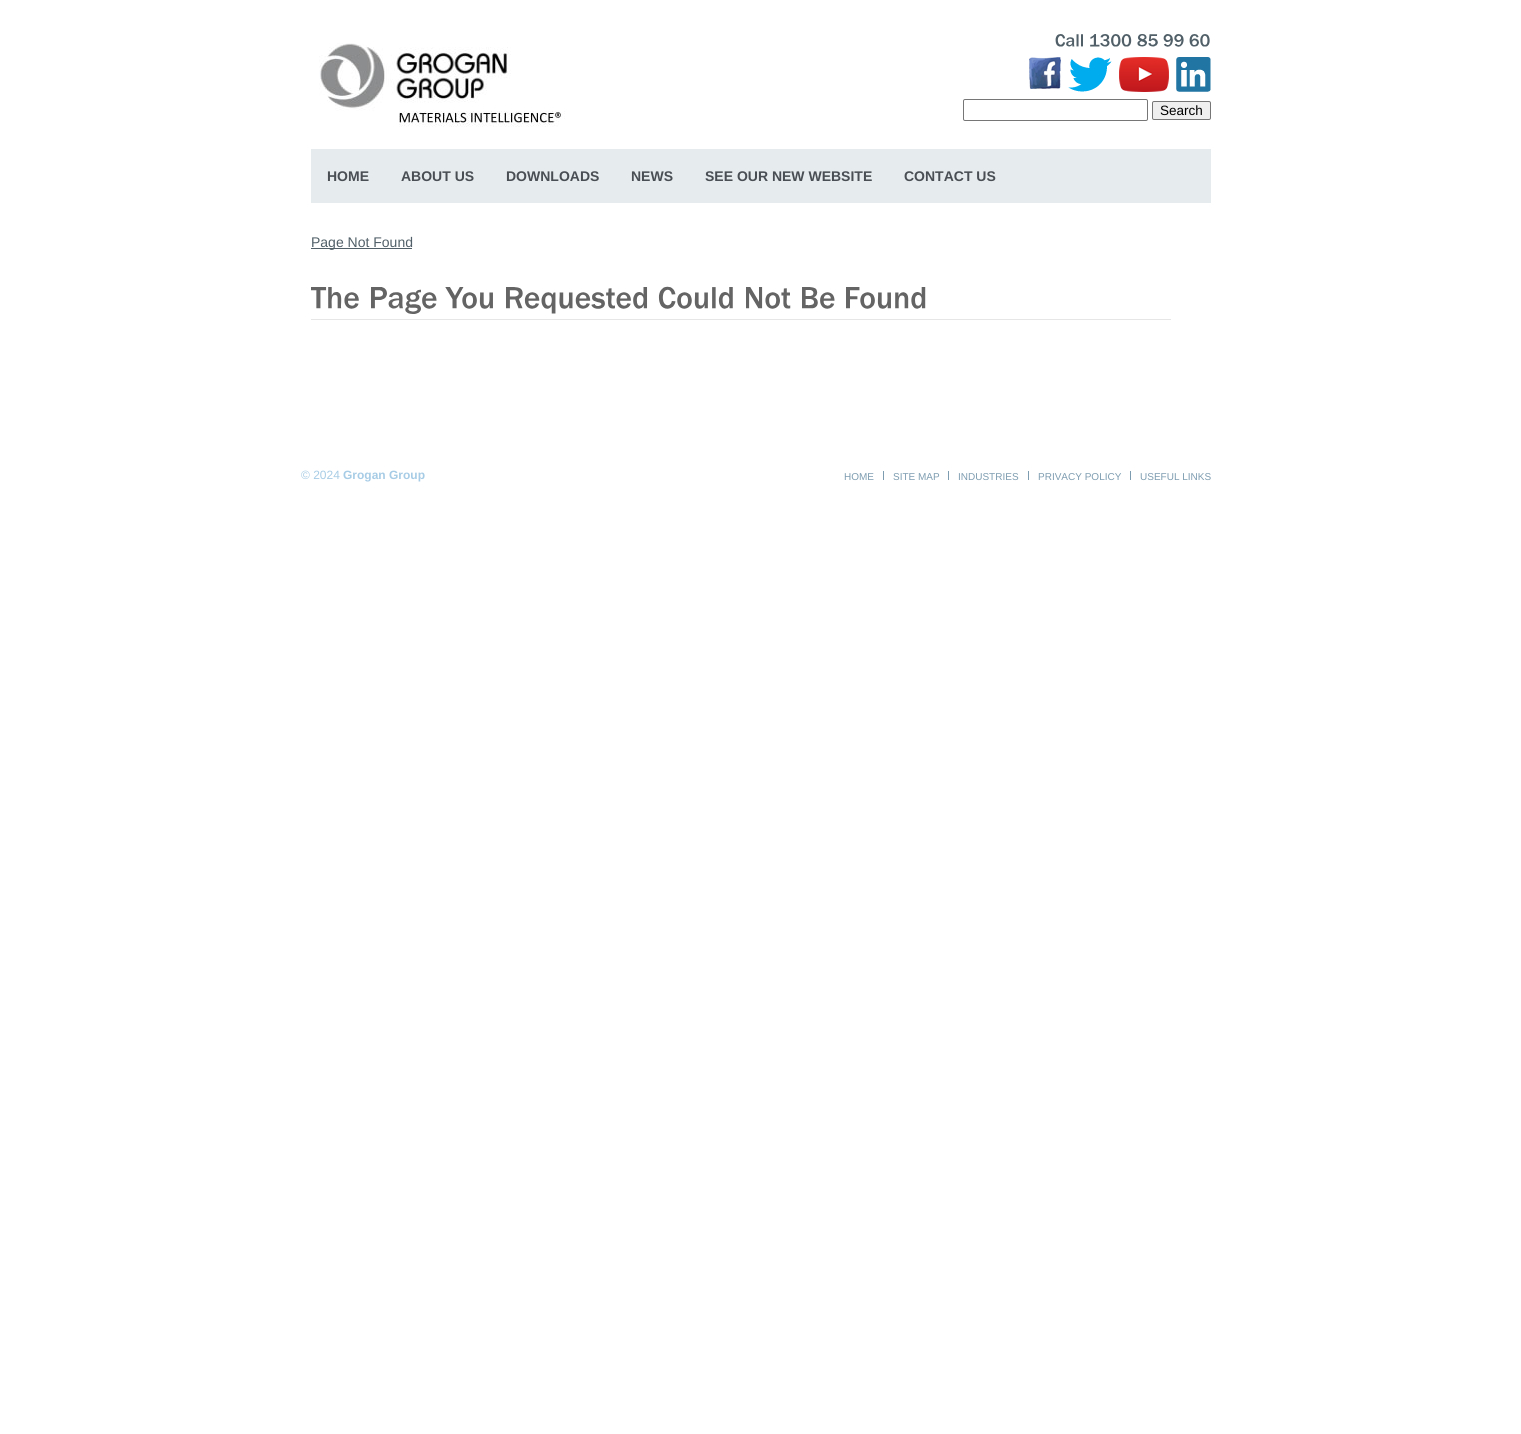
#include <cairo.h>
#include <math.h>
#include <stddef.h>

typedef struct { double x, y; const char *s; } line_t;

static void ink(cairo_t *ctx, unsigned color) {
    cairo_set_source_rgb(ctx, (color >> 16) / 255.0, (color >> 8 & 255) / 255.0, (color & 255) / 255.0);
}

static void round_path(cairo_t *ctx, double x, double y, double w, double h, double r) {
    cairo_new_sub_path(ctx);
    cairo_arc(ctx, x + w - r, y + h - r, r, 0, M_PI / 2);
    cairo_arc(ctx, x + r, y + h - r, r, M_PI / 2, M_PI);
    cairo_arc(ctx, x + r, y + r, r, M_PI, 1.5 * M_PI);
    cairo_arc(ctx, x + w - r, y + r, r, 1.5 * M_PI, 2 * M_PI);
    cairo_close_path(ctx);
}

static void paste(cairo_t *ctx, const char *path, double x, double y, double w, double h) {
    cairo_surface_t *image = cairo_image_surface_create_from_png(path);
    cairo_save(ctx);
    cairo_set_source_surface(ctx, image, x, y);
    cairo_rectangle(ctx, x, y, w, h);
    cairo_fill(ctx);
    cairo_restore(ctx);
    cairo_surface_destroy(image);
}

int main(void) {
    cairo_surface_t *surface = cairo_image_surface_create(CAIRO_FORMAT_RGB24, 1521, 1434);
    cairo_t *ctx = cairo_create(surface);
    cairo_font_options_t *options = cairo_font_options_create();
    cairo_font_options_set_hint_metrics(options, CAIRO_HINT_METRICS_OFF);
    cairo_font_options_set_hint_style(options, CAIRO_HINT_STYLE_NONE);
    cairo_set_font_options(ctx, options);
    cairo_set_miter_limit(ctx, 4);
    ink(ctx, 0xFFFFFF);
    cairo_paint(ctx);
    paste(ctx, "media/1.png", 1055, 34, 28, 13);
    paste(ctx, "media/2.png", 1090, 34, 42, 13);
    paste(ctx, "media/3.png", 1137, 34, 21, 13);
    paste(ctx, "media/4.png", 1163, 34, 21, 13);
    paste(ctx, "media/5.png", 1189, 34, 21, 13);
    paste(ctx, "media/6.png", 319, 43, 246, 84);
    paste(ctx, "media/7.png", 1029, 57, 32, 32);
    paste(ctx, "media/8.png", 1068, 57, 44, 35);
    paste(ctx, "media/9.png", 1119, 57, 50, 35);
    paste(ctx, "media/10.png", 1176, 57, 35, 35);
    round_path(ctx, 963.5, 99.5, 184, 21, 1.5);
    ink(ctx, 0x767676);
    cairo_set_line_width(ctx, 1);
    cairo_stroke(ctx);
    ink(ctx, 0xEFEFEF);
    round_path(ctx, 1152.5, 101.5, 58, 18, 1.5);
    cairo_fill_preserve(ctx);
    ink(ctx, 0x767676);
    cairo_stroke(ctx);
    cairo_select_font_face(ctx, "Liberation Sans", CAIRO_FONT_SLANT_NORMAL, CAIRO_FONT_WEIGHT_NORMAL);
    cairo_set_font_size(ctx, 13.5);
    ink(ctx, 0x000000);
    cairo_move_to(ctx, 1160, 115);
    cairo_show_text(ctx, "Search");
    ink(ctx, 0xE6EBEE);
    cairo_rectangle(ctx, 311, 149, 900, 54);
    cairo_fill(ctx);
    cairo_select_font_face(ctx, "Liberation Sans", CAIRO_FONT_SLANT_NORMAL, CAIRO_FONT_WEIGHT_BOLD);
    cairo_set_font_size(ctx, 14);
    ink(ctx, 0x494E54);
    {
        static const line_t items[] = {
            {327, 181, "HOME"},
            {401, 181, "ABOUT US"},
            {506, 181, "DOWNLOADS"},
            {631, 181, "NEWS"},
            {705, 181, "SEE OUR NEW WEBSITE"},
            {904, 181, "CONTACT US"},
        };
        for (size_t i = 0; i < sizeof items / sizeof *items; i++) {
            cairo_move_to(ctx, items[i].x, items[i].y);
            cairo_show_text(ctx, items[i].s);
        }
    }
    ink(ctx, 0x516068);
    cairo_rectangle(ctx, 311, 248, 101, 1);
    cairo_fill(ctx);
    cairo_select_font_face(ctx, "Liberation Sans", CAIRO_FONT_SLANT_NORMAL, CAIRO_FONT_WEIGHT_NORMAL);
    cairo_move_to(ctx, 311, 247);
    cairo_show_text(ctx, "Page Not Found");
    ink(ctx, 0xE6E6E6);
    cairo_rectangle(ctx, 311, 319, 860, 1);
    cairo_fill(ctx);
    paste(ctx, "media/11.png", 311, 287, 48, 22);
    paste(ctx, "media/12.png", 371, 287, 66, 27);
    paste(ctx, "media/13.png", 445, 287, 48, 22);
    paste(ctx, "media/14.png", 506, 287, 142, 27);
    paste(ctx, "media/15.png", 658, 286, 75, 23);
    paste(ctx, "media/16.png", 746, 287, 45, 22);
    paste(ctx, "media/17.png", 802, 287, 33, 22);
    paste(ctx, "media/18.png", 846, 287, 80, 22);
    cairo_set_font_size(ctx, 12);
    ink(ctx, 0xA7CCE5);
    cairo_move_to(ctx, 301, 479);
    cairo_show_text(ctx, "© 2024");
    cairo_select_font_face(ctx, "Liberation Sans", CAIRO_FONT_SLANT_NORMAL, CAIRO_FONT_WEIGHT_BOLD);
    cairo_move_to(ctx, 343, 479);
    cairo_show_text(ctx, "Grogan Group");
    ink(ctx, 0x7D9CB0);
    cairo_rectangle(ctx, 883, 471, 1, 9);
    cairo_fill(ctx);
    cairo_select_font_face(ctx, "Liberation Sans", CAIRO_FONT_SLANT_NORMAL, CAIRO_FONT_WEIGHT_NORMAL);
    cairo_set_font_size(ctx, 10);
    cairo_move_to(ctx, 844, 480);
    cairo_show_text(ctx, "HOME");
    cairo_rectangle(ctx, 948, 471, 1, 9);
    cairo_fill(ctx);
    cairo_move_to(ctx, 893, 480);
    cairo_show_text(ctx, "SITE MAP");
    cairo_rectangle(ctx, 1028, 471, 1, 9);
    cairo_fill(ctx);
    cairo_move_to(ctx, 958, 480);
    cairo_show_text(ctx, "INDUSTRIES");
    cairo_rectangle(ctx, 1130, 471, 1, 9);
    cairo_fill(ctx);
    cairo_move_to(ctx, 1038, 480);
    cairo_show_text(ctx, "PRIVACY POLICY");
    cairo_move_to(ctx, 1140, 480);
    cairo_show_text(ctx, "USEFUL LINKS");
    cairo_surface_write_to_png(surface, "image.png");
    cairo_font_options_destroy(options);
    cairo_destroy(ctx);
    cairo_surface_destroy(surface);
    return 0;
}
